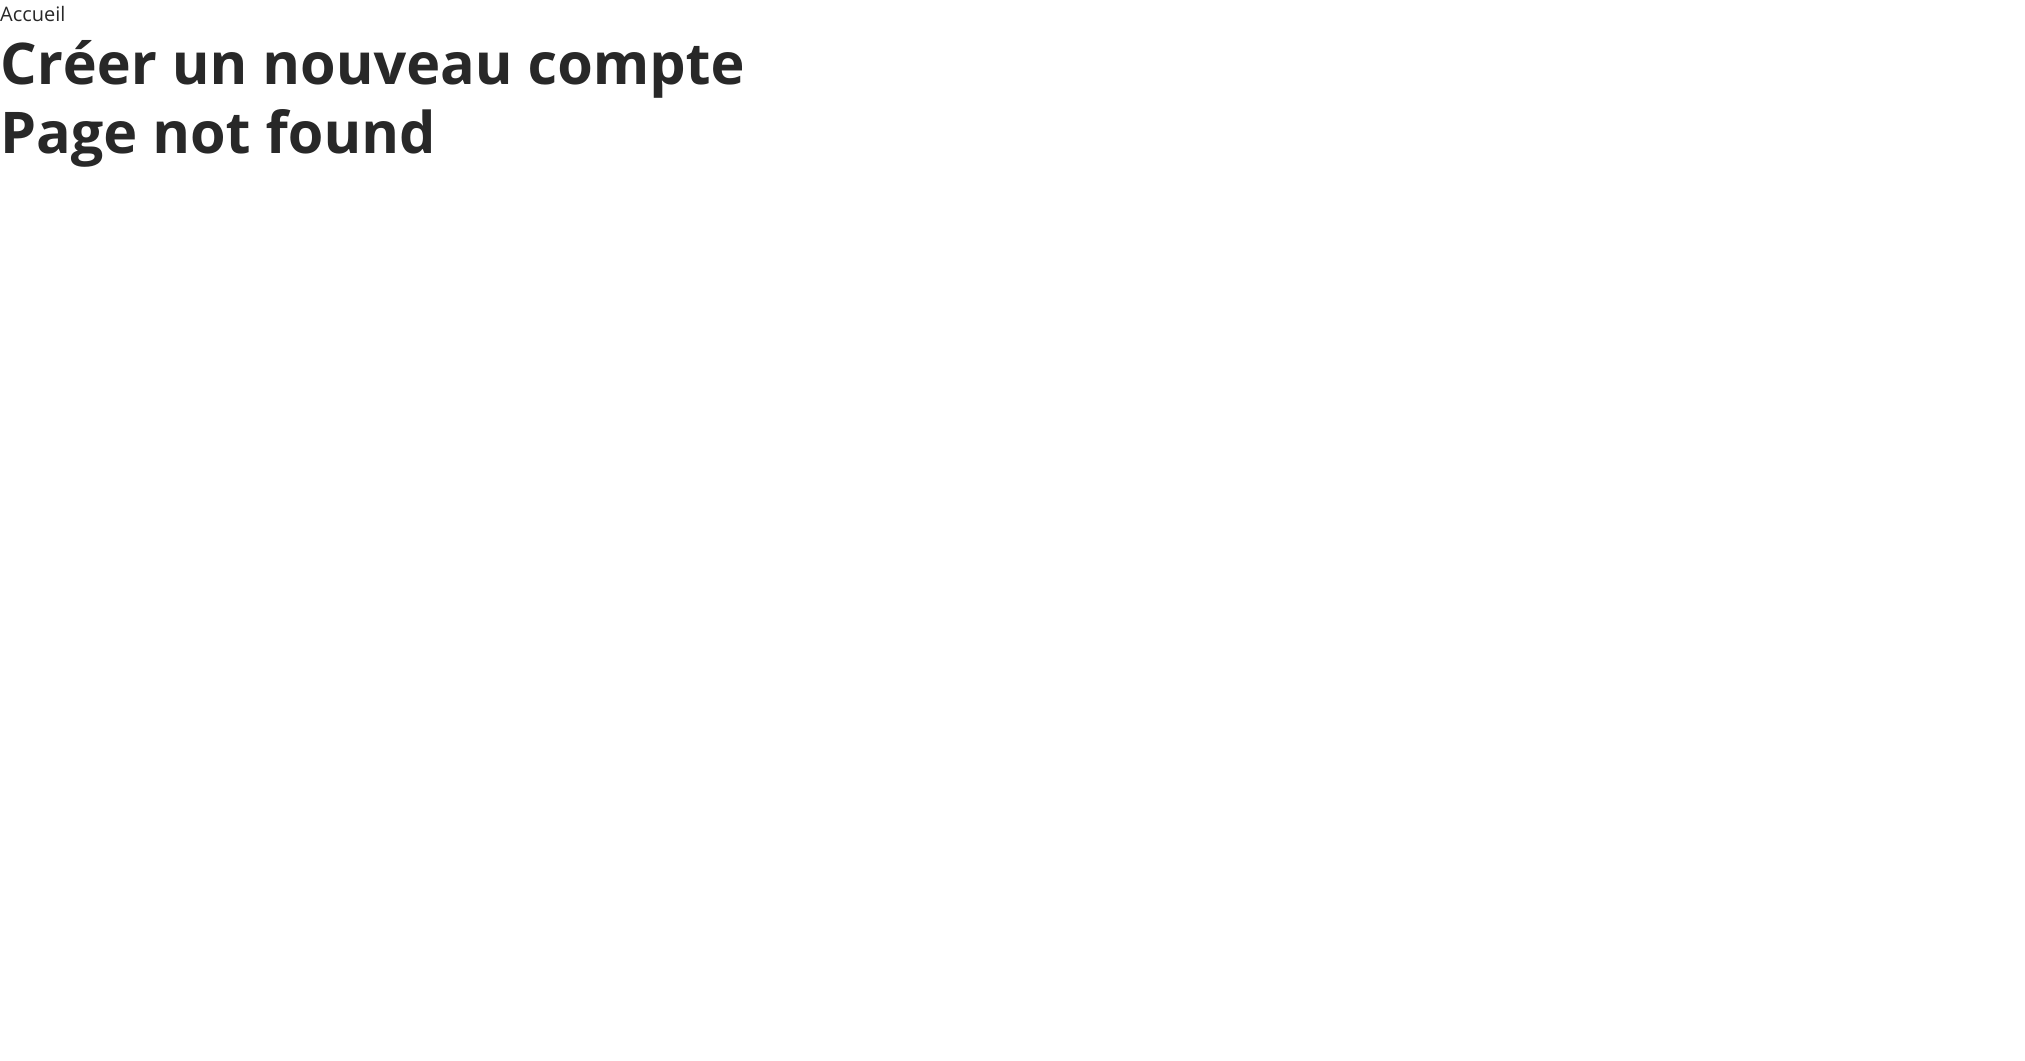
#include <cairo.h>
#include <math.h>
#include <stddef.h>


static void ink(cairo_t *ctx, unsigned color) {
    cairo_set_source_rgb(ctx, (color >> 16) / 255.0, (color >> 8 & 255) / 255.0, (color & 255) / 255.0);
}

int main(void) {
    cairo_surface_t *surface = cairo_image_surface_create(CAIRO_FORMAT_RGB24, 2025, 1061);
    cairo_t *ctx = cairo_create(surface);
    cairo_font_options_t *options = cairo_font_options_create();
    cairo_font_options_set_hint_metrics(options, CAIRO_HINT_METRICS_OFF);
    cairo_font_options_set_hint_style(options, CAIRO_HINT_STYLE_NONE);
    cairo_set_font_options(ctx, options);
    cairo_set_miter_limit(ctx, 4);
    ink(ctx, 0xFFFFFF);
    cairo_paint(ctx);
    cairo_select_font_face(ctx, "Open Sans", CAIRO_FONT_SLANT_NORMAL, CAIRO_FONT_WEIGHT_NORMAL);
    cairo_set_font_size(ctx, 20);
    ink(ctx, 0x282828);
    cairo_move_to(ctx, 0, 21);
    cairo_show_text(ctx, "Accueil");
    cairo_select_font_face(ctx, "Open Sans", CAIRO_FONT_SLANT_NORMAL, CAIRO_FONT_WEIGHT_BOLD);
    cairo_set_font_size(ctx, 57.5);
    cairo_move_to(ctx, 0, 84);
    cairo_show_text(ctx, "Créer un nouveau compte");
    cairo_move_to(ctx, 0, 153);
    cairo_show_text(ctx, "Page not found");
    cairo_surface_write_to_png(surface, "image.png");
    cairo_font_options_destroy(options);
    cairo_destroy(ctx);
    cairo_surface_destroy(surface);
    return 0;
}
